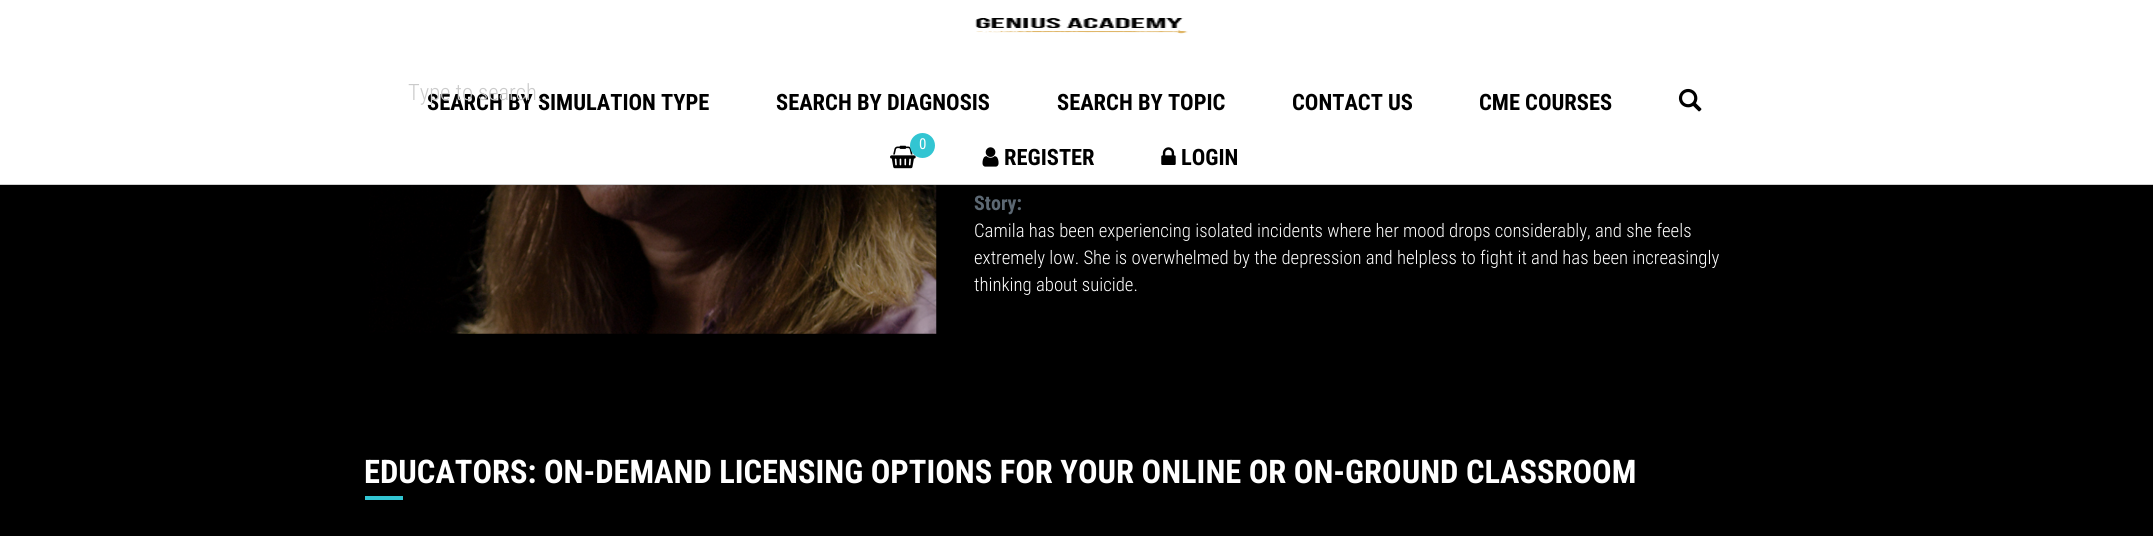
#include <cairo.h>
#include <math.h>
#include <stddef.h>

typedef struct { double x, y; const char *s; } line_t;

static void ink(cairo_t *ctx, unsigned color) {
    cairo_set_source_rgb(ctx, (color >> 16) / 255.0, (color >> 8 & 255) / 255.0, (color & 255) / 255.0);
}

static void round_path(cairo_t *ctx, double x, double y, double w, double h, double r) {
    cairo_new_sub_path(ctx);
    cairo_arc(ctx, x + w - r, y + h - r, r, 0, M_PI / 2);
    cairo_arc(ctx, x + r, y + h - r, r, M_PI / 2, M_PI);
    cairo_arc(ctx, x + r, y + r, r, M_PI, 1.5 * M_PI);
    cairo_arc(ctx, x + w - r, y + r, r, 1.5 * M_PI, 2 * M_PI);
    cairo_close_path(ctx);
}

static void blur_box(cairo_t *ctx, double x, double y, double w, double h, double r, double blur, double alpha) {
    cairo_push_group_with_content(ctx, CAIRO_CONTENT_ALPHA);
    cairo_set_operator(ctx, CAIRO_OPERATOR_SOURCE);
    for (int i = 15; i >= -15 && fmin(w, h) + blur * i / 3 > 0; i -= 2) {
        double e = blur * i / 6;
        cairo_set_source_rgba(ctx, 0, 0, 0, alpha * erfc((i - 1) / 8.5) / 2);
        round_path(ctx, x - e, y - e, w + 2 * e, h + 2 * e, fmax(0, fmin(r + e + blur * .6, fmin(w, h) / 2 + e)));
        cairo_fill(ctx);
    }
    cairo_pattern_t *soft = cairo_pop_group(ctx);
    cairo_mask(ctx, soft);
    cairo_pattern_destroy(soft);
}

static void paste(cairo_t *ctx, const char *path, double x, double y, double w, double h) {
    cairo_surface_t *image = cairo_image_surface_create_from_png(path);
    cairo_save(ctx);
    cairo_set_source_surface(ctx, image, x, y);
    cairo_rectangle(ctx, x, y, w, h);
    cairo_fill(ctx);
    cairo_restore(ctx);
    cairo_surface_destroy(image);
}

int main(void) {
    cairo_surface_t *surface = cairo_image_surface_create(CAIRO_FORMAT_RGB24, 2153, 536);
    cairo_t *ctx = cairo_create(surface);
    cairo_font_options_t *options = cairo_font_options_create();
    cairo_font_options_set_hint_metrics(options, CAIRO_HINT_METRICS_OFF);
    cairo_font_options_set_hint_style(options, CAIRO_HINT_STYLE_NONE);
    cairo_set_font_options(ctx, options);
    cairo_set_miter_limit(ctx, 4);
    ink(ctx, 0x000000);
    cairo_paint(ctx);
    paste(ctx, "media/6.png", 369, 185, 568, 149);
    blur_box(ctx, 0, 0, 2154, 185, 0, 12.5, 0.2);
    ink(ctx, 0xFFFFFF);
    cairo_rectangle(ctx, 0, 0, 2153, 184);
    cairo_fill(ctx);
    ink(ctx, 0xD1D1D1);
    cairo_rectangle(ctx, 0, 184, 2153, 1);
    cairo_fill(ctx);
    cairo_select_font_face(ctx, "Roboto Condensed", CAIRO_FONT_SLANT_NORMAL, CAIRO_FONT_WEIGHT_BOLD);
    cairo_set_font_size(ctx, 22.5);
    ink(ctx, 0x000000);
    cairo_move_to(ctx, 427, 110);
    cairo_show_text(ctx, "SEARCH BY SIMULATION TYPE");
    cairo_select_font_face(ctx, "Roboto Condensed Light", CAIRO_FONT_SLANT_NORMAL, CAIRO_FONT_WEIGHT_NORMAL);
    ink(ctx, 0xCBCBCB);
    cairo_move_to(ctx, 408, 100);
    cairo_show_text(ctx, "Type to search..");
    paste(ctx, "media/1.png", 975, 18, 213, 16);
    cairo_select_font_face(ctx, "Roboto Condensed", CAIRO_FONT_SLANT_NORMAL, CAIRO_FONT_WEIGHT_BOLD);
    ink(ctx, 0x000000);
    {
        static const line_t items[] = {
            {776, 110, "SEARCH BY DIAGNOSIS"},
            {1057, 110, "SEARCH BY TOPIC"},
            {1292, 110, "CONTACT US"},
            {1479, 110, "CME COURSES"},
        };
        for (size_t i = 0; i < sizeof items / sizeof *items; i++) {
            cairo_move_to(ctx, items[i].x, items[i].y);
            cairo_show_text(ctx, items[i].s);
        }
    }
    paste(ctx, "media/2.png", 1678, 88, 24, 24);
    paste(ctx, "media/3.png", 890, 145, 26, 24);
    ink(ctx, 0x32C5D2);
    cairo_arc(ctx, 922.5, 145.5, 12.5, 0, 2 * M_PI);
    cairo_fill(ctx);
    cairo_select_font_face(ctx, "Roboto Condensed", CAIRO_FONT_SLANT_NORMAL, CAIRO_FONT_WEIGHT_NORMAL);
    cairo_set_font_size(ctx, 15);
    ink(ctx, 0xFFFFFF);
    cairo_move_to(ctx, 919, 149);
    cairo_show_text(ctx, "0");
    paste(ctx, "media/4.png", 982, 147, 17, 20);
    cairo_select_font_face(ctx, "Roboto Condensed", CAIRO_FONT_SLANT_NORMAL, CAIRO_FONT_WEIGHT_BOLD);
    cairo_set_font_size(ctx, 22.5);
    ink(ctx, 0x000000);
    cairo_move_to(ctx, 1004, 165);
    cairo_show_text(ctx, "REGISTER");
    paste(ctx, "media/5.png", 1161, 147, 15, 18);
    cairo_move_to(ctx, 1181, 165);
    cairo_show_text(ctx, "LOGIN");
    cairo_set_font_size(ctx, 20);
    ink(ctx, 0x5C6873);
    cairo_move_to(ctx, 974, 210);
    cairo_show_text(ctx, "Story:");
    cairo_select_font_face(ctx, "Roboto Condensed Light", CAIRO_FONT_SLANT_NORMAL, CAIRO_FONT_WEIGHT_NORMAL);
    cairo_set_font_size(ctx, 18.75);
    ink(ctx, 0xFFFFFF);
    {
        static const line_t items[] = {
            {974, 237, "Camila has been experiencing isolated incidents where her mood drops considerably, and she feels"},
            {974, 264, "extremely low. She is overwhelmed by the depression and helpless to fight it and has been increasingly"},
            {974, 291, "thinking about suicide."},
        };
        for (size_t i = 0; i < sizeof items / sizeof *items; i++) {
            cairo_move_to(ctx, items[i].x, items[i].y);
            cairo_show_text(ctx, items[i].s);
        }
    }
    cairo_select_font_face(ctx, "Roboto Condensed", CAIRO_FONT_SLANT_NORMAL, CAIRO_FONT_WEIGHT_BOLD);
    cairo_set_font_size(ctx, 32.5);
    cairo_move_to(ctx, 364, 483);
    cairo_show_text(ctx, "EDUCATORS: ON-DEMAND LICENSING OPTIONS FOR YOUR ONLINE OR ON-GROUND CLASSROOM");
    ink(ctx, 0x32C5D2);
    cairo_rectangle(ctx, 365, 496, 38, 4);
    cairo_fill(ctx);
    cairo_surface_write_to_png(surface, "image.png");
    cairo_font_options_destroy(options);
    cairo_destroy(ctx);
    cairo_surface_destroy(surface);
    return 0;
}
